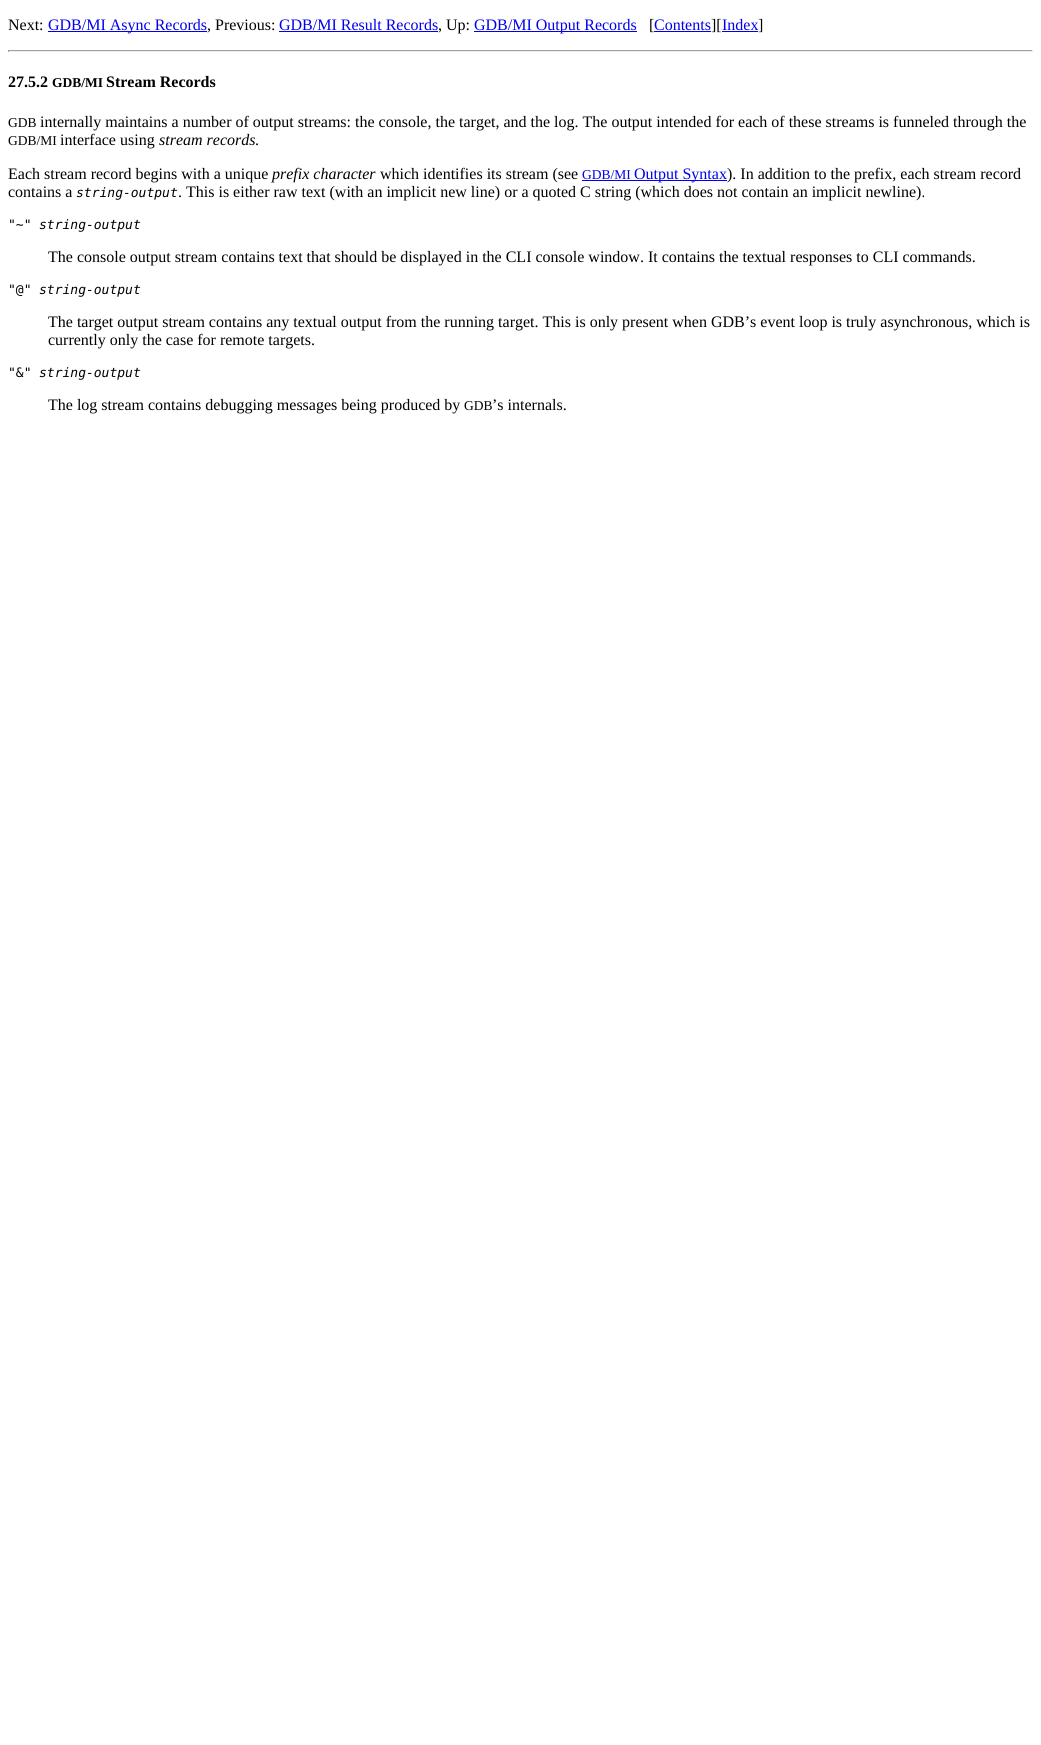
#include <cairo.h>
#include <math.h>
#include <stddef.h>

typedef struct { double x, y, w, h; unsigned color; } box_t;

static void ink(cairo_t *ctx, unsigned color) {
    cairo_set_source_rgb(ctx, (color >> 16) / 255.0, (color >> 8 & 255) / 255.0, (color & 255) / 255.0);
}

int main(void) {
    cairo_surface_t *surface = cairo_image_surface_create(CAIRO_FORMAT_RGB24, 1041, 1745);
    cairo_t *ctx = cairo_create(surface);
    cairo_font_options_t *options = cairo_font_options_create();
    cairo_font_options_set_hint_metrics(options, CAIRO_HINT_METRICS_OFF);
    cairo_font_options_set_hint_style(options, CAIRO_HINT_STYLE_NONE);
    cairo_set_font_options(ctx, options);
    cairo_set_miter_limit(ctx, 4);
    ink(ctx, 0xFFFFFF);
    cairo_paint(ctx);
    cairo_select_font_face(ctx, "Liberation Serif", CAIRO_FONT_SLANT_NORMAL, CAIRO_FONT_WEIGHT_NORMAL);
    cairo_set_font_size(ctx, 16);
    ink(ctx, 0x000000);
    cairo_move_to(ctx, 8, 30);
    cairo_show_text(ctx, "Next:");
    ink(ctx, 0x0000EE);
    cairo_rectangle(ctx, 48, 31, 159, 1);
    cairo_fill(ctx);
    cairo_move_to(ctx, 48, 30);
    cairo_show_text(ctx, "GDB/MI Async Records");
    ink(ctx, 0x000000);
    cairo_move_to(ctx, 207, 30);
    cairo_show_text(ctx, ", Previous:");
    ink(ctx, 0x0000EE);
    cairo_move_to(ctx, 279, 30);
    cairo_show_text(ctx, "GDB/MI Result Records");
    cairo_rectangle(ctx, 279, 31, 159, 1);
    cairo_fill(ctx);
    ink(ctx, 0x000000);
    cairo_move_to(ctx, 438, 30);
    cairo_show_text(ctx, ", Up:");
    ink(ctx, 0x0000EE);
    cairo_rectangle(ctx, 474, 31, 163, 1);
    cairo_fill(ctx);
    cairo_move_to(ctx, 474, 30);
    cairo_show_text(ctx, "GDB/MI Output Records");
    ink(ctx, 0x000000);
    cairo_move_to(ctx, 649, 30);
    cairo_show_text(ctx, "[");
    ink(ctx, 0x0000EE);
    cairo_move_to(ctx, 654, 30);
    cairo_show_text(ctx, "Contents");
    cairo_rectangle(ctx, 654, 31, 57, 1);
    cairo_fill(ctx);
    ink(ctx, 0x000000);
    cairo_move_to(ctx, 711, 30);
    cairo_show_text(ctx, "][");
    ink(ctx, 0x0000EE);
    cairo_move_to(ctx, 722, 30);
    cairo_show_text(ctx, "Index");
    cairo_rectangle(ctx, 722, 31, 36, 1);
    cairo_fill(ctx);
    ink(ctx, 0x000000);
    cairo_move_to(ctx, 758, 30);
    cairo_show_text(ctx, "]");
    {
        static const box_t items[] = {
            {8, 50, 1025, 1, 0x9F9F9F},
            {1032, 50, 1, 2, 0xEEEEEE},
            {8, 51, 1025, 1, 0xEEEEEE},
            {8, 50, 1, 2, 0x9F9F9F},
        };
        for (size_t i = 0; i < sizeof items / sizeof *items; i++) {
            ink(ctx, items[i].color);
            cairo_rectangle(ctx, items[i].x, items[i].y, items[i].w, items[i].h);
            cairo_fill(ctx);
        }
    }
    cairo_select_font_face(ctx, "Liberation Serif", CAIRO_FONT_SLANT_NORMAL, CAIRO_FONT_WEIGHT_BOLD);
    ink(ctx, 0x000000);
    cairo_move_to(ctx, 8, 87);
    cairo_show_text(ctx, "27.5.2");
    cairo_set_font_size(ctx, 13.5);
    cairo_move_to(ctx, 52, 87);
    cairo_show_text(ctx, "GDB/MI");
    cairo_set_font_size(ctx, 16);
    cairo_move_to(ctx, 106, 87);
    cairo_show_text(ctx, "Stream Records");
    cairo_select_font_face(ctx, "Liberation Serif", CAIRO_FONT_SLANT_NORMAL, CAIRO_FONT_WEIGHT_NORMAL);
    cairo_set_font_size(ctx, 13.5);
    cairo_move_to(ctx, 8, 127);
    cairo_show_text(ctx, "GDB");
    cairo_set_font_size(ctx, 16);
    cairo_move_to(ctx, 40, 127);
    cairo_show_text(ctx, "internally maintains a number of output streams: the console, the target, and the log. The output intended for each of these streams is funneled through the");
    cairo_set_font_size(ctx, 13.5);
    cairo_move_to(ctx, 8, 145);
    cairo_show_text(ctx, "GDB/MI");
    cairo_set_font_size(ctx, 16);
    cairo_move_to(ctx, 60, 145);
    cairo_show_text(ctx, "interface using");
    cairo_select_font_face(ctx, "Liberation Serif", CAIRO_FONT_SLANT_ITALIC, CAIRO_FONT_WEIGHT_NORMAL);
    cairo_move_to(ctx, 159, 145);
    cairo_show_text(ctx, "stream records");
    cairo_select_font_face(ctx, "Liberation Serif", CAIRO_FONT_SLANT_NORMAL, CAIRO_FONT_WEIGHT_NORMAL);
    cairo_move_to(ctx, 255, 145);
    cairo_show_text(ctx, ".");
    cairo_move_to(ctx, 8, 179);
    cairo_show_text(ctx, "Each stream record begins with a unique");
    cairo_select_font_face(ctx, "Liberation Serif", CAIRO_FONT_SLANT_ITALIC, CAIRO_FONT_WEIGHT_NORMAL);
    cairo_move_to(ctx, 272, 179);
    cairo_show_text(ctx, "prefix character");
    cairo_select_font_face(ctx, "Liberation Serif", CAIRO_FONT_SLANT_NORMAL, CAIRO_FONT_WEIGHT_NORMAL);
    cairo_move_to(ctx, 380, 179);
    cairo_show_text(ctx, "which identifies its stream (see");
    cairo_set_font_size(ctx, 13.5);
    ink(ctx, 0x0000EE);
    cairo_move_to(ctx, 582, 179);
    cairo_show_text(ctx, "GDB/MI");
    cairo_rectangle(ctx, 582, 180, 145, 1);
    cairo_fill(ctx);
    cairo_set_font_size(ctx, 16);
    cairo_move_to(ctx, 634, 179);
    cairo_show_text(ctx, "Output Syntax");
    ink(ctx, 0x000000);
    cairo_move_to(ctx, 727, 179);
    cairo_show_text(ctx, "). In addition to the prefix, each stream record");
    cairo_move_to(ctx, 8, 197);
    cairo_show_text(ctx, "contains a");
    cairo_select_font_face(ctx, "DejaVu Sans Mono", CAIRO_FONT_SLANT_ITALIC, CAIRO_FONT_WEIGHT_NORMAL);
    cairo_set_font_size(ctx, 13);
    cairo_move_to(ctx, 76, 197);
    cairo_show_text(ctx, "string-output");
    cairo_select_font_face(ctx, "Liberation Serif", CAIRO_FONT_SLANT_NORMAL, CAIRO_FONT_WEIGHT_NORMAL);
    cairo_set_font_size(ctx, 16);
    cairo_move_to(ctx, 178, 197);
    cairo_show_text(ctx, ". This is either raw text (with an implicit new line) or a quoted C string (which does not contain an implicit newline).");
    cairo_select_font_face(ctx, "DejaVu Sans Mono", CAIRO_FONT_SLANT_NORMAL, CAIRO_FONT_WEIGHT_NORMAL);
    cairo_set_font_size(ctx, 13);
    cairo_move_to(ctx, 8, 229);
    cairo_show_text(ctx, "\"~\"");
    cairo_select_font_face(ctx, "DejaVu Sans Mono", CAIRO_FONT_SLANT_ITALIC, CAIRO_FONT_WEIGHT_NORMAL);
    cairo_move_to(ctx, 39, 229);
    cairo_show_text(ctx, "string-output");
    cairo_select_font_face(ctx, "Liberation Serif", CAIRO_FONT_SLANT_NORMAL, CAIRO_FONT_WEIGHT_NORMAL);
    cairo_set_font_size(ctx, 16);
    cairo_move_to(ctx, 48, 262);
    cairo_show_text(ctx, "The console output stream contains text that should be displayed in the CLI console window. It contains the textual responses to CLI commands.");
    cairo_select_font_face(ctx, "DejaVu Sans Mono", CAIRO_FONT_SLANT_NORMAL, CAIRO_FONT_WEIGHT_NORMAL);
    cairo_set_font_size(ctx, 13);
    cairo_move_to(ctx, 8, 294);
    cairo_show_text(ctx, "\"@\"");
    cairo_select_font_face(ctx, "DejaVu Sans Mono", CAIRO_FONT_SLANT_ITALIC, CAIRO_FONT_WEIGHT_NORMAL);
    cairo_move_to(ctx, 39, 294);
    cairo_show_text(ctx, "string-output");
    cairo_select_font_face(ctx, "Liberation Serif", CAIRO_FONT_SLANT_NORMAL, CAIRO_FONT_WEIGHT_NORMAL);
    cairo_set_font_size(ctx, 16);
    cairo_move_to(ctx, 48, 327);
    cairo_show_text(ctx, "The target output stream contains any textual output from the running target. This is only present when GDB’s event loop is truly asynchronous, which is");
    cairo_move_to(ctx, 48, 345);
    cairo_show_text(ctx, "currently only the case for remote targets.");
    cairo_select_font_face(ctx, "DejaVu Sans Mono", CAIRO_FONT_SLANT_NORMAL, CAIRO_FONT_WEIGHT_NORMAL);
    cairo_set_font_size(ctx, 13);
    cairo_move_to(ctx, 8, 377);
    cairo_show_text(ctx, "\"&\"");
    cairo_select_font_face(ctx, "DejaVu Sans Mono", CAIRO_FONT_SLANT_ITALIC, CAIRO_FONT_WEIGHT_NORMAL);
    cairo_move_to(ctx, 39, 377);
    cairo_show_text(ctx, "string-output");
    cairo_select_font_face(ctx, "Liberation Serif", CAIRO_FONT_SLANT_NORMAL, CAIRO_FONT_WEIGHT_NORMAL);
    cairo_set_font_size(ctx, 16);
    cairo_move_to(ctx, 48, 410);
    cairo_show_text(ctx, "The log stream contains debugging messages being produced by");
    cairo_set_font_size(ctx, 13.5);
    cairo_move_to(ctx, 464, 410);
    cairo_show_text(ctx, "GDB");
    cairo_set_font_size(ctx, 16);
    cairo_move_to(ctx, 492, 410);
    cairo_show_text(ctx, "’s internals.");
    cairo_surface_write_to_png(surface, "image.png");
    cairo_font_options_destroy(options);
    cairo_destroy(ctx);
    cairo_surface_destroy(surface);
    return 0;
}
